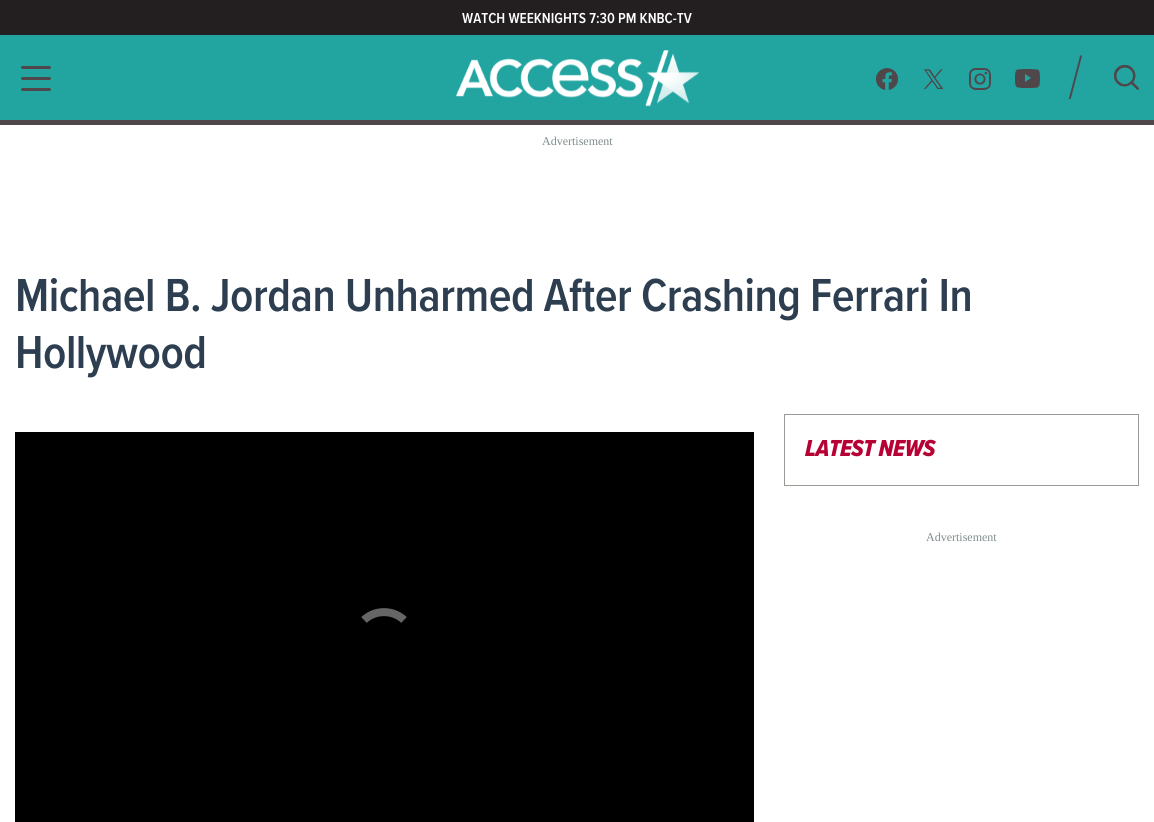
#include <cairo.h>
#include <math.h>
#include <stddef.h>


static void ink(cairo_t *ctx, unsigned color) {
    cairo_set_source_rgb(ctx, (color >> 16) / 255.0, (color >> 8 & 255) / 255.0, (color & 255) / 255.0);
}

static void write_spaced(cairo_t *ctx, double x, double y, const char *s, double letter, double word) {
    cairo_move_to(ctx, x, y);
    while (*s) {
        char ch[5] = {0};
        int n = 0;
        do ch[n++] = *s++; while ((*s & 0xC0) == 0x80);
        cairo_show_text(ctx, ch);
        cairo_rel_move_to(ctx, letter + word * (*ch == ' '), 0);
    }
}

static void paste(cairo_t *ctx, const char *path, double x, double y, double w, double h) {
    cairo_surface_t *image = cairo_image_surface_create_from_png(path);
    cairo_save(ctx);
    cairo_set_source_surface(ctx, image, x, y);
    cairo_rectangle(ctx, x, y, w, h);
    cairo_fill(ctx);
    cairo_restore(ctx);
    cairo_surface_destroy(image);
}

int main(void) {
    cairo_surface_t *surface = cairo_image_surface_create(CAIRO_FORMAT_RGB24, 1154, 822);
    cairo_t *ctx = cairo_create(surface);
    cairo_font_options_t *options = cairo_font_options_create();
    cairo_font_options_set_hint_metrics(options, CAIRO_HINT_METRICS_OFF);
    cairo_font_options_set_hint_style(options, CAIRO_HINT_STYLE_NONE);
    cairo_set_font_options(ctx, options);
    cairo_set_miter_limit(ctx, 4);
    ink(ctx, 0xFFFFFF);
    cairo_paint(ctx);
    ink(ctx, 0x231F20);
    cairo_rectangle(ctx, 0, 0, 1154, 35);
    cairo_fill(ctx);
    cairo_select_font_face(ctx, "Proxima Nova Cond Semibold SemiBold", CAIRO_FONT_SLANT_NORMAL, CAIRO_FONT_WEIGHT_NORMAL);
    cairo_set_font_size(ctx, 15);
    ink(ctx, 0xFFFFFF);
    cairo_move_to(ctx, 462, 23);
    cairo_show_text(ctx, "WATCH WEEKNIGHTS 7:30 PM KNBC-TV");
    ink(ctx, 0x22A5A1);
    cairo_rectangle(ctx, 0, 35, 1154, 85);
    cairo_fill(ctx);
    paste(ctx, "media/1.png", 21, 66, 30, 25);
    paste(ctx, "media/2.png", 456, 50, 243, 57);
    paste(ctx, "media/3.png", 875, 68, 24, 22);
    paste(ctx, "media/4.png", 924, 69, 20, 20);
    paste(ctx, "media/5.png", 969, 68, 22, 22);
    paste(ctx, "media/6.png", 1015, 69, 25, 19);
    ink(ctx, 0x4F474A);
    cairo_new_path(ctx);
    cairo_move_to(ctx, 1069, 98);
    cairo_line_to(ctx, 1080, 56);
    cairo_curve_to(ctx, 1080, 55, 1081, 55, 1082, 56);
    cairo_line_to(ctx, 1071, 98);
    cairo_curve_to(ctx, 1070, 100, 1068, 99, 1069, 98);
    cairo_close_path(ctx);
    cairo_fill(ctx);
    paste(ctx, "media/7.png", 1114, 65, 25, 25);
    cairo_rectangle(ctx, 0, 120, 1154, 5);
    cairo_fill(ctx);
    cairo_select_font_face(ctx, "Liberation Serif", CAIRO_FONT_SLANT_NORMAL, CAIRO_FONT_WEIGHT_NORMAL);
    cairo_set_font_size(ctx, 12);
    ink(ctx, 0x7F8C8D);
    cairo_move_to(ctx, 542, 145);
    cairo_show_text(ctx, "Advertisement");
    cairo_select_font_face(ctx, "Proxima Nova Cond Semibold SemiBold", CAIRO_FONT_SLANT_NORMAL, CAIRO_FONT_WEIGHT_NORMAL);
    cairo_set_font_size(ctx, 48);
    ink(ctx, 0x2C3E50);
    write_spaced(ctx, 15, 311, "Michael B. Jordan Unharmed After Crashing Ferrari In", -0.5, 0);
    write_spaced(ctx, 15, 368, "Hollywood", -0.5, 0);
    ink(ctx, 0x000000);
    cairo_rectangle(ctx, 15, 432, 739, 390);
    cairo_fill(ctx);
    cairo_new_path(ctx);
    cairo_move_to(ctx, 364, 620);
    cairo_curve_to(ctx, 375, 609.5, 393, 609.5, 404, 620);
    cairo_move_to(ctx, 364, 620);
    cairo_curve_to(ctx, 375, 609.5, 393, 609.5, 404, 620);
    cairo_move_to(ctx, 364, 620);
    cairo_curve_to(ctx, 375, 609.5, 393, 609.5, 404, 620);
    cairo_move_to(ctx, 364, 620);
    cairo_curve_to(ctx, 375, 609.5, 393, 609.5, 404, 620);
    ink(ctx, 0x666666);
    cairo_set_line_width(ctx, 8);
    cairo_stroke(ctx);
    cairo_rectangle(ctx, 784.5, 414.5, 354, 71);
    ink(ctx, 0x9D9A95);
    cairo_set_line_width(ctx, 1);
    cairo_stroke(ctx);
    cairo_select_font_face(ctx, "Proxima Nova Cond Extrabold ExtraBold", CAIRO_FONT_SLANT_ITALIC, CAIRO_FONT_WEIGHT_NORMAL);
    cairo_set_font_size(ctx, 24);
    ink(ctx, 0xB70134);
    write_spaced(ctx, 805, 456, "LATEST NEWS", -0.5, 0);
    cairo_select_font_face(ctx, "Liberation Serif", CAIRO_FONT_SLANT_NORMAL, CAIRO_FONT_WEIGHT_NORMAL);
    cairo_set_font_size(ctx, 12);
    ink(ctx, 0x7F8C8D);
    cairo_move_to(ctx, 926, 541);
    cairo_show_text(ctx, "Advertisement");
    cairo_surface_write_to_png(surface, "image.png");
    cairo_font_options_destroy(options);
    cairo_destroy(ctx);
    cairo_surface_destroy(surface);
    return 0;
}
